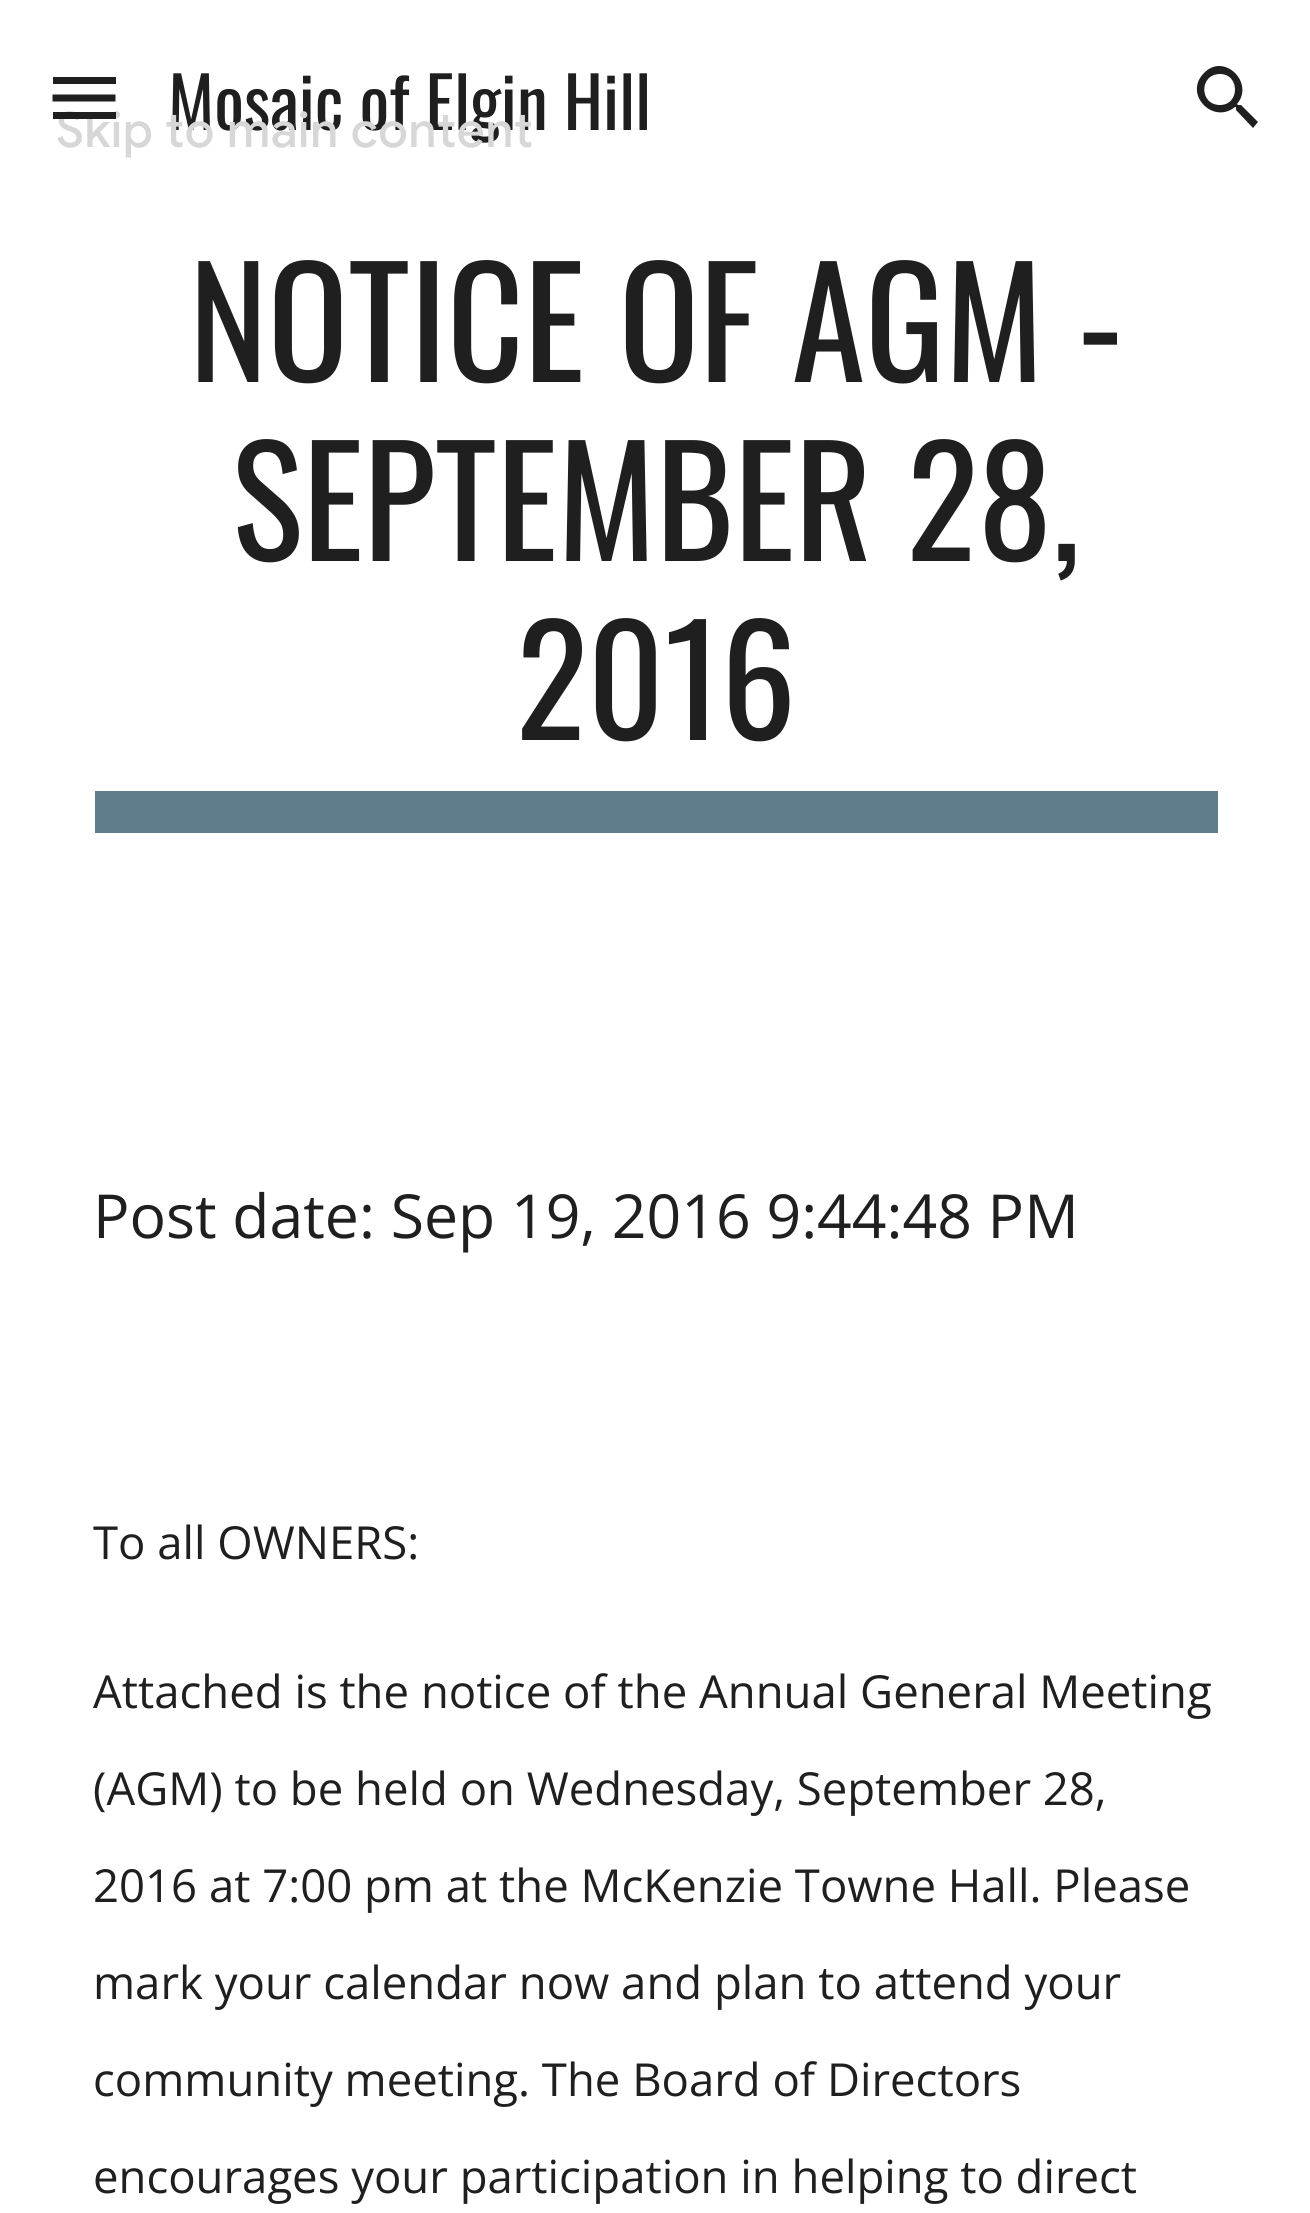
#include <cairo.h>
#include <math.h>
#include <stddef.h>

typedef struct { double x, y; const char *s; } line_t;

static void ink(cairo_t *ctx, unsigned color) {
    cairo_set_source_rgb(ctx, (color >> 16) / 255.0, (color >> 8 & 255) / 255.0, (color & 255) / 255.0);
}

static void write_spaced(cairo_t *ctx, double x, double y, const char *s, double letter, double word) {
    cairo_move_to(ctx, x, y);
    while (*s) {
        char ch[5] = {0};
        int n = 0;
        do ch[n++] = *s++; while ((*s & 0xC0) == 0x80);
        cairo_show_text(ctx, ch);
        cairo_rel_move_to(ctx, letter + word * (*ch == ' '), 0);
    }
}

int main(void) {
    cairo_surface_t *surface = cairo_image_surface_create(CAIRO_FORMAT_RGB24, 1310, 2213);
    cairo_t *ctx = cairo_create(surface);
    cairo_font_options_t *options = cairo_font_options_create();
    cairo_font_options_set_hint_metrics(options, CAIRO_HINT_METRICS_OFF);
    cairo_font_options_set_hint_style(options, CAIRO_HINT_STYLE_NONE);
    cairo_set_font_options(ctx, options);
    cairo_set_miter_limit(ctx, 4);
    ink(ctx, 0xFFFFFF);
    cairo_paint(ctx);
    ink(ctx, 0x1F1F1F);
    cairo_rectangle(ctx, 53, 77, 63, 7);
    cairo_fill(ctx);
    cairo_new_path(ctx);
    cairo_move_to(ctx, 52.5, 98);
    cairo_line_to(ctx, 115.5, 98);
    cairo_set_line_width(ctx, 7);
    cairo_stroke(ctx);
    cairo_select_font_face(ctx, "Oswald", CAIRO_FONT_SLANT_NORMAL, CAIRO_FONT_WEIGHT_NORMAL);
    cairo_set_font_size(ctx, 70);
    cairo_move_to(ctx, 168, 130);
    cairo_show_text(ctx, "Mosaic of Elgin Hill");
    cairo_select_font_face(ctx, "Google Sans Medium", CAIRO_FONT_SLANT_NORMAL, CAIRO_FONT_WEIGHT_NORMAL);
    cairo_set_font_size(ctx, 49);
    ink(ctx, 0xD7D7D7);
    write_spaced(ctx, 56, 147, "Skip to main content", 0.5, 0);
    ink(ctx, 0x1F1F1F);
    cairo_rectangle(ctx, 53, 112, 63, 7);
    cairo_fill(ctx);
    cairo_new_path(ctx);
    cairo_move_to(ctx, 1241, 105);
    cairo_line_to(ctx, 1238, 105);
    cairo_line_to(ctx, 1237, 104);
    cairo_curve_to(ctx, 1255, 83, 1224, 52, 1204, 73);
    cairo_curve_to(ctx, 1183, 94, 1213, 125, 1235, 107);
    cairo_line_to(ctx, 1236, 107);
    cairo_line_to(ctx, 1236, 110);
    cairo_line_to(ctx, 1253, 128);
    cairo_line_to(ctx, 1258, 122);
    cairo_close_path(ctx);
    cairo_move_to(ctx, 1220, 105);
    cairo_curve_to(ctx, 1199, 105, 1199, 74, 1220, 74);
    cairo_curve_to(ctx, 1240, 74, 1240, 105, 1220, 105);
    cairo_close_path(ctx);
    cairo_fill(ctx);
    cairo_select_font_face(ctx, "Oswald", CAIRO_FONT_SLANT_NORMAL, CAIRO_FONT_WEIGHT_NORMAL);
    cairo_set_font_size(ctx, 149.25);
    {
        static const line_t items[] = {
            {189, 382, "NOTICE OF AGM -"},
            {232, 561, "SEPTEMBER 28,"},
            {516, 740, "2016"},
        };
        for (size_t i = 0; i < sizeof items / sizeof *items; i++) {
            cairo_move_to(ctx, items[i].x, items[i].y);
            cairo_show_text(ctx, items[i].s);
        }
    }
    ink(ctx, 0x607D8B);
    cairo_rectangle(ctx, 95, 791, 1123, 42);
    cairo_fill(ctx);
    cairo_select_font_face(ctx, "Open Sans", CAIRO_FONT_SLANT_NORMAL, CAIRO_FONT_WEIGHT_NORMAL);
    cairo_set_font_size(ctx, 60.7);
    ink(ctx, 0x1F1F1F);
    cairo_move_to(ctx, 93, 1238);
    cairo_show_text(ctx, "Post date: Sep 19, 2016 9:44:48 PM");
    cairo_set_font_size(ctx, 45.5);
    {
        static const line_t items[] = {
            {93, 1559, "To all OWNERS:"},
            {93, 1708, "Attached is the notice of the Annual General Meeting"},
            {93, 1805, "(AGM) to be held on Wednesday, September 28,"},
            {93, 1902, "2016 at 7:00 pm at the McKenzie Towne Hall. Please"},
            {93, 1999, "mark your calendar now and plan to attend your"},
            {93, 2096, "community meeting. The Board of Directors"},
            {93, 2193, "encourages your participation in helping to direct"},
        };
        for (size_t i = 0; i < sizeof items / sizeof *items; i++) {
            cairo_move_to(ctx, items[i].x, items[i].y);
            cairo_show_text(ctx, items[i].s);
        }
    }
    cairo_surface_write_to_png(surface, "image.png");
    cairo_font_options_destroy(options);
    cairo_destroy(ctx);
    cairo_surface_destroy(surface);
    return 0;
}
